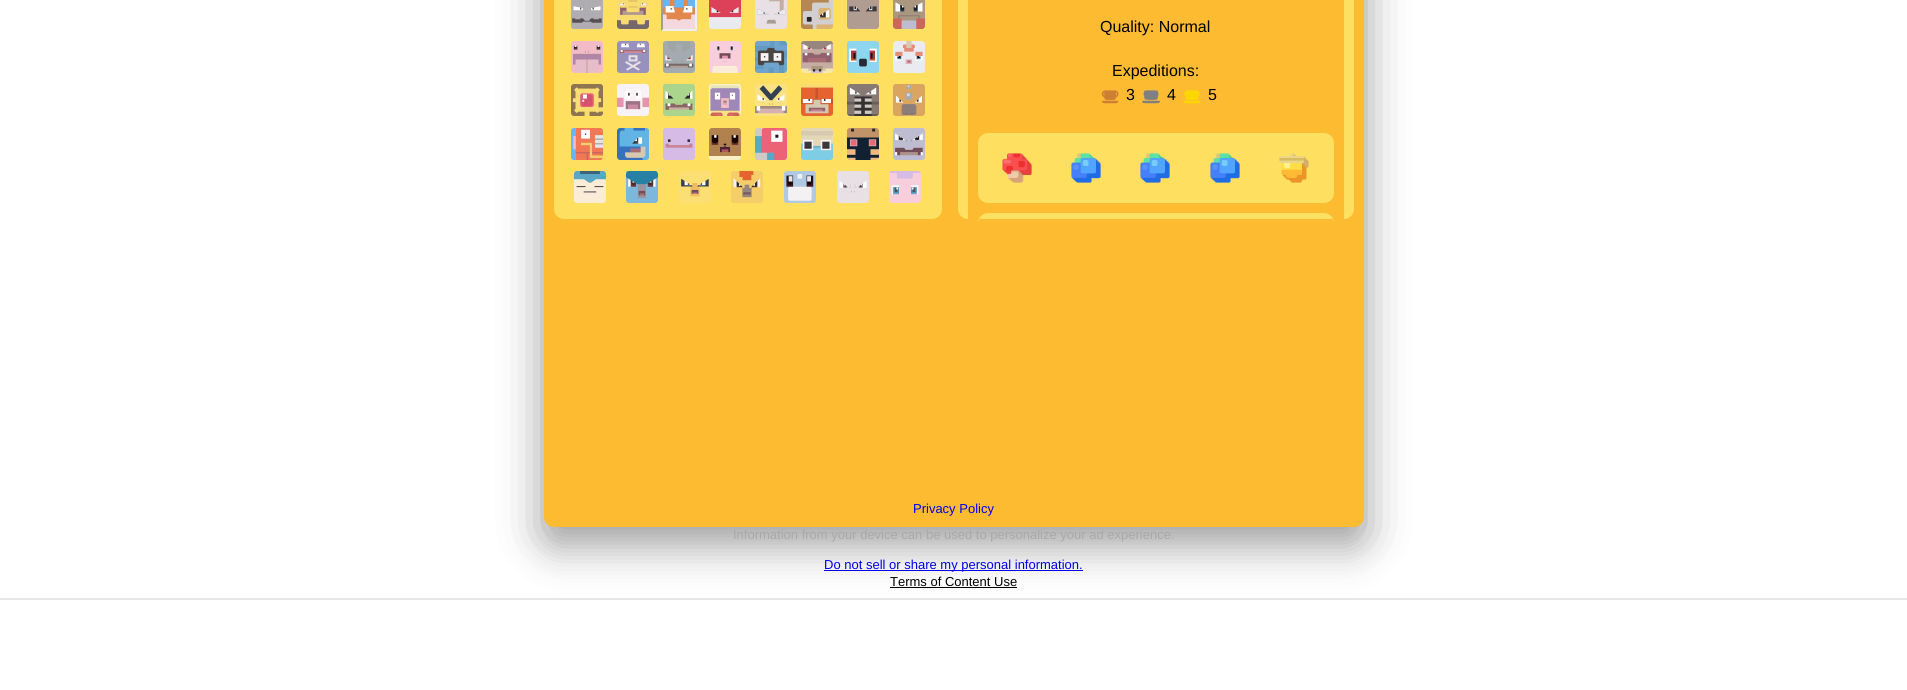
#include <cairo.h>
#include <math.h>
#include <stddef.h>


static void ink(cairo_t *ctx, unsigned color) {
    cairo_set_source_rgb(ctx, (color >> 16) / 255.0, (color >> 8 & 255) / 255.0, (color & 255) / 255.0);
}

static void round_path(cairo_t *ctx, double x, double y, double w, double h, double r) {
    cairo_new_sub_path(ctx);
    cairo_arc(ctx, x + w - r, y + h - r, r, 0, M_PI / 2);
    cairo_arc(ctx, x + r, y + h - r, r, M_PI / 2, M_PI);
    cairo_arc(ctx, x + r, y + r, r, M_PI, 1.5 * M_PI);
    cairo_arc(ctx, x + w - r, y + r, r, 1.5 * M_PI, 2 * M_PI);
    cairo_close_path(ctx);
}

static void blur_box(cairo_t *ctx, double x, double y, double w, double h, double r, double blur, double alpha) {
    cairo_push_group_with_content(ctx, CAIRO_CONTENT_ALPHA);
    cairo_set_operator(ctx, CAIRO_OPERATOR_SOURCE);
    for (int i = 15; i >= -15 && fmin(w, h) + blur * i / 3 > 0; i -= 2) {
        double e = blur * i / 6;
        cairo_set_source_rgba(ctx, 0, 0, 0, alpha * erfc((i - 1) / 8.5) / 2);
        round_path(ctx, x - e, y - e, w + 2 * e, h + 2 * e, fmax(0, fmin(r + e + blur * .6, fmin(w, h) / 2 + e)));
        cairo_fill(ctx);
    }
    cairo_pattern_t *soft = cairo_pop_group(ctx);
    cairo_mask(ctx, soft);
    cairo_pattern_destroy(soft);
}

static void paste(cairo_t *ctx, const char *path, double x, double y, double w, double h) {
    cairo_surface_t *image = cairo_image_surface_create_from_png(path);
    cairo_save(ctx);
    cairo_set_source_surface(ctx, image, x, y);
    cairo_rectangle(ctx, x, y, w, h);
    cairo_fill(ctx);
    cairo_restore(ctx);
    cairo_surface_destroy(image);
}

int main(void) {
    cairo_surface_t *surface = cairo_image_surface_create(CAIRO_FORMAT_RGB24, 1907, 690);
    cairo_t *ctx = cairo_create(surface);
    cairo_font_options_t *options = cairo_font_options_create();
    cairo_font_options_set_hint_metrics(options, CAIRO_HINT_METRICS_OFF);
    cairo_font_options_set_hint_style(options, CAIRO_HINT_STYLE_NONE);
    cairo_set_font_options(ctx, options);
    cairo_set_miter_limit(ctx, 4);
    ink(ctx, 0xFFFFFF);
    cairo_paint(ctx);
    ink(ctx, 0x000000);
    blur_box(ctx, 544, -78, 820, 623, 10, 22.5, 0.22);
    blur_box(ctx, 544, -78, 820, 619, 10, 22.5, 0.22);
    ink(ctx, 0xFDBB32);
    round_path(ctx, 544, -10, 820, 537, 10);
    cairo_fill(ctx);
    ink(ctx, 0xFEDF60);
    round_path(ctx, 554, -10, 388, 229, 10);
    cairo_fill(ctx);
    paste(ctx, "media/1.png", 571, 0, 32, 29);
    paste(ctx, "media/2.png", 617, 0, 32, 29);
    paste(ctx, "media/3.png", 661, 0, 36, 31);
    ink(ctx, 0xEEEEEE);
    cairo_new_path(ctx);
    cairo_move_to(ctx, 697, -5);
    cairo_line_to(ctx, 697, 31);
    cairo_line_to(ctx, 695, 29);
    cairo_line_to(ctx, 695, -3);
    cairo_close_path(ctx);
    cairo_fill(ctx);
    cairo_new_path(ctx);
    cairo_move_to(ctx, 697, 31);
    cairo_line_to(ctx, 661, 31);
    cairo_line_to(ctx, 663, 29);
    cairo_line_to(ctx, 695, 29);
    cairo_close_path(ctx);
    cairo_fill(ctx);
    ink(ctx, 0x9F9F9F);
    cairo_new_path(ctx);
    cairo_move_to(ctx, 661, 31);
    cairo_line_to(ctx, 661, -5);
    cairo_line_to(ctx, 663, -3);
    cairo_line_to(ctx, 663, 29);
    cairo_close_path(ctx);
    cairo_fill(ctx);
    paste(ctx, "media/4.png", 709, 0, 32, 29);
    paste(ctx, "media/5.png", 755, 0, 32, 29);
    paste(ctx, "media/6.png", 801, 0, 32, 29);
    paste(ctx, "media/7.png", 847, 0, 32, 29);
    paste(ctx, "media/8.png", 893, 0, 32, 29);
    paste(ctx, "media/9.png", 571, 41, 32, 32);
    paste(ctx, "media/10.png", 617, 41, 32, 32);
    paste(ctx, "media/11.png", 663, 41, 32, 32);
    paste(ctx, "media/12.png", 709, 41, 32, 32);
    paste(ctx, "media/13.png", 755, 41, 32, 32);
    paste(ctx, "media/14.png", 801, 41, 32, 32);
    paste(ctx, "media/15.png", 847, 41, 32, 32);
    paste(ctx, "media/16.png", 893, 41, 32, 32);
    paste(ctx, "media/17.png", 571, 84, 32, 32);
    paste(ctx, "media/18.png", 617, 84, 32, 32);
    paste(ctx, "media/19.png", 663, 84, 32, 32);
    paste(ctx, "media/20.png", 709, 84, 32, 32);
    paste(ctx, "media/21.png", 755, 84, 32, 32);
    paste(ctx, "media/22.png", 801, 84, 32, 32);
    paste(ctx, "media/23.png", 847, 84, 32, 32);
    paste(ctx, "media/24.png", 893, 84, 32, 32);
    paste(ctx, "media/25.png", 571, 128, 32, 32);
    paste(ctx, "media/26.png", 617, 128, 32, 32);
    paste(ctx, "media/27.png", 663, 128, 32, 32);
    paste(ctx, "media/28.png", 709, 128, 32, 32);
    paste(ctx, "media/29.png", 755, 128, 32, 32);
    paste(ctx, "media/30.png", 801, 128, 32, 32);
    paste(ctx, "media/31.png", 847, 128, 32, 32);
    paste(ctx, "media/32.png", 893, 128, 32, 32);
    paste(ctx, "media/33.png", 574, 171, 32, 32);
    paste(ctx, "media/34.png", 626, 171, 32, 32);
    paste(ctx, "media/35.png", 679, 171, 32, 32);
    paste(ctx, "media/36.png", 731, 171, 32, 32);
    paste(ctx, "media/37.png", 784, 171, 32, 32);
    paste(ctx, "media/38.png", 837, 171, 32, 32);
    paste(ctx, "media/39.png", 889, 171, 32, 32);
    ink(ctx, 0xFEDF60);
    round_path(ctx, 958, -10, 396, 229, 10);
    cairo_fill(ctx);
    ink(ctx, 0xFDBB32);
    cairo_rectangle(ctx, 968, 0, 376, 219);
    cairo_fill(ctx);
    cairo_select_font_face(ctx, "Liberation Sans", CAIRO_FONT_SLANT_NORMAL, CAIRO_FONT_WEIGHT_NORMAL);
    cairo_set_font_size(ctx, 16);
    ink(ctx, 0x000000);
    cairo_move_to(ctx, 1100, 32);
    cairo_show_text(ctx, "Quality: Normal");
    cairo_move_to(ctx, 1112, 76);
    cairo_show_text(ctx, "Expeditions:");
    paste(ctx, "media/40.png", 1101, 90, 18, 14);
    paste(ctx, "media/41.png", 1102, 90, 17, 14);
    cairo_move_to(ctx, 1126, 100);
    cairo_show_text(ctx, "3");
    paste(ctx, "media/43.png", 1143, 90, 17, 14);
    paste(ctx, "media/42.png", 1142, 90, 17, 14);
    cairo_move_to(ctx, 1167, 100);
    cairo_show_text(ctx, "4");
    paste(ctx, "media/45.png", 1184, 90, 17, 14);
    paste(ctx, "media/44.png", 1183, 90, 17, 14);
    cairo_move_to(ctx, 1208, 100);
    cairo_show_text(ctx, "5");
    ink(ctx, 0xFEDF60);
    round_path(ctx, 978, 133, 356, 70, 10);
    cairo_fill(ctx);
    paste(ctx, "media/46.png", 1002, 153, 30, 30);
    paste(ctx, "media/47.png", 1071, 153, 30, 30);
    paste(ctx, "media/48.png", 1140, 153, 30, 30);
    paste(ctx, "media/47.png", 1210, 153, 30, 30);
    paste(ctx, "media/49.png", 1279, 153, 30, 30);
    cairo_new_path(ctx);
    cairo_move_to(ctx, 988, 213);
    cairo_line_to(ctx, 1324, 213);
    cairo_curve_to(ctx, 1329.5, 213, 1334, 217.5, 1334, 223);
    cairo_line_to(ctx, 1334, 219);
    cairo_line_to(ctx, 978, 219);
    cairo_line_to(ctx, 978, 223);
    cairo_curve_to(ctx, 978, 217.5, 982.5, 213, 988, 213);
    cairo_close_path(ctx);
    cairo_fill(ctx);
    cairo_set_font_size(ctx, 13);
    ink(ctx, 0x0000EE);
    cairo_move_to(ctx, 913, 513);
    cairo_show_text(ctx, "Privacy Policy");
    ink(ctx, 0xA9A9A9);
    cairo_move_to(ctx, 733, 539);
    cairo_show_text(ctx, "Information from your device can be used to personalize your ad experience.");
    ink(ctx, 0x0000EE);
    cairo_rectangle(ctx, 824, 570, 259, 1);
    cairo_fill(ctx);
    cairo_move_to(ctx, 824, 569);
    cairo_show_text(ctx, "Do not sell or share my personal information.");
    ink(ctx, 0x000000);
    cairo_move_to(ctx, 890, 586);
    cairo_show_text(ctx, "Terms of Content Use");
    cairo_rectangle(ctx, 890, 587, 127, 1);
    cairo_fill(ctx);
    ink(ctx, 0xE7E7E7);
    cairo_rectangle(ctx, 0, 598, 1907, 2);
    cairo_fill(ctx);
    cairo_surface_write_to_png(surface, "image.png");
    cairo_font_options_destroy(options);
    cairo_destroy(ctx);
    cairo_surface_destroy(surface);
    return 0;
}
